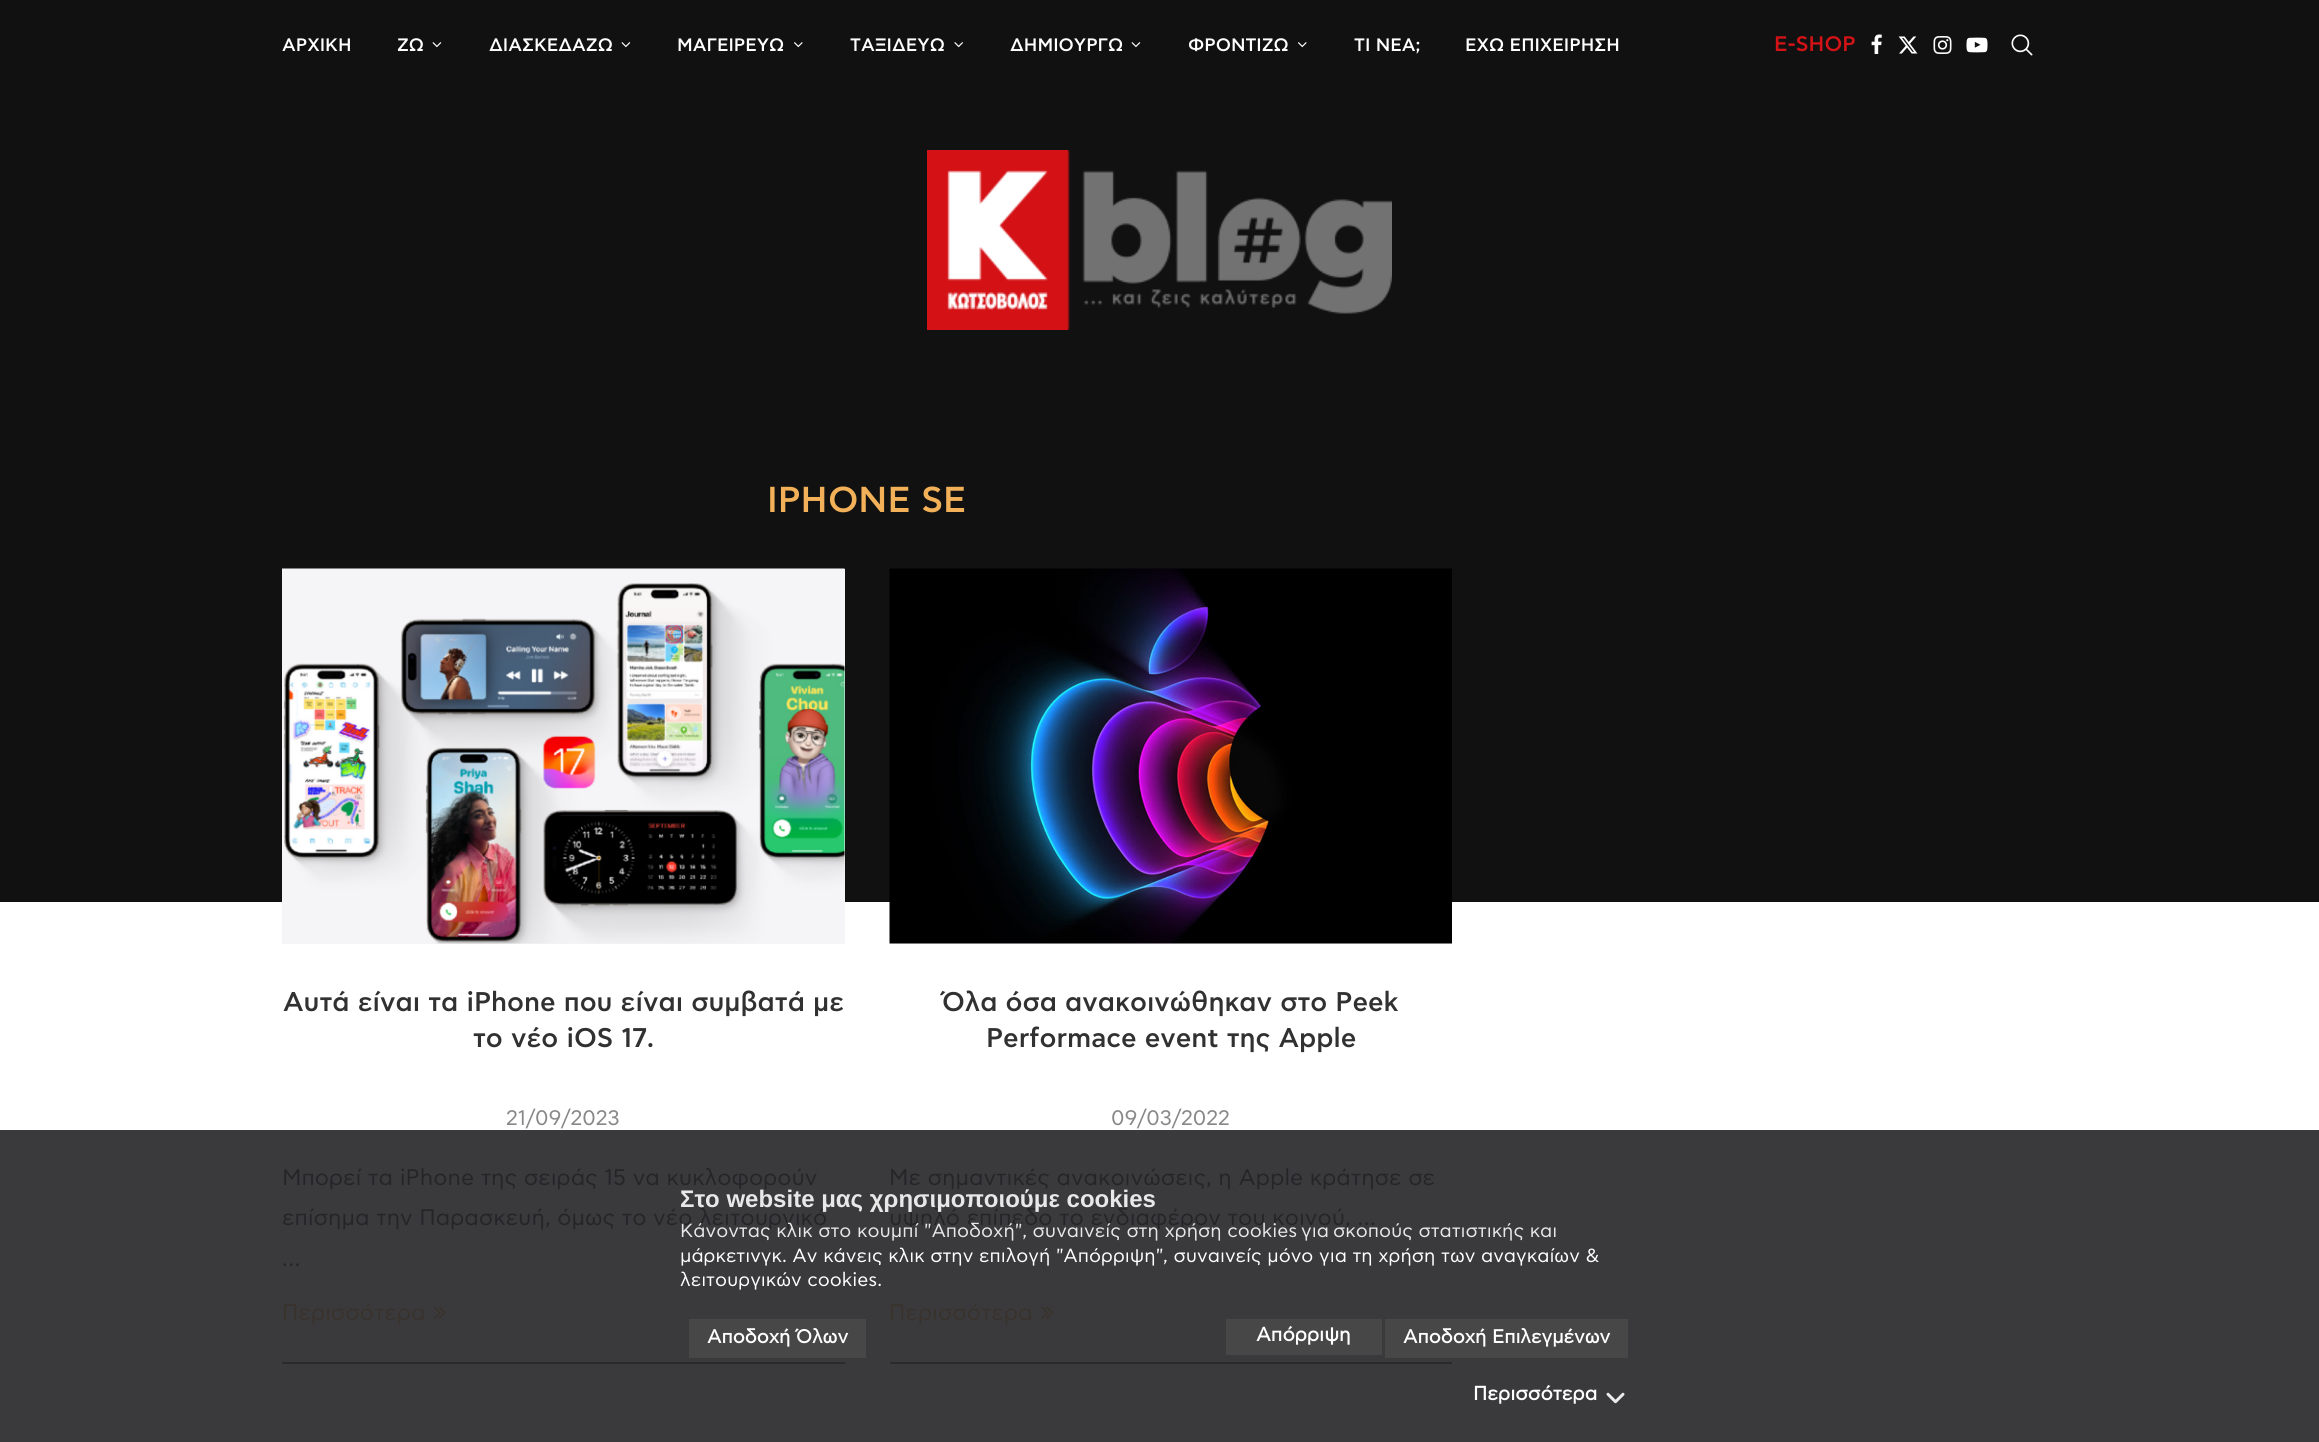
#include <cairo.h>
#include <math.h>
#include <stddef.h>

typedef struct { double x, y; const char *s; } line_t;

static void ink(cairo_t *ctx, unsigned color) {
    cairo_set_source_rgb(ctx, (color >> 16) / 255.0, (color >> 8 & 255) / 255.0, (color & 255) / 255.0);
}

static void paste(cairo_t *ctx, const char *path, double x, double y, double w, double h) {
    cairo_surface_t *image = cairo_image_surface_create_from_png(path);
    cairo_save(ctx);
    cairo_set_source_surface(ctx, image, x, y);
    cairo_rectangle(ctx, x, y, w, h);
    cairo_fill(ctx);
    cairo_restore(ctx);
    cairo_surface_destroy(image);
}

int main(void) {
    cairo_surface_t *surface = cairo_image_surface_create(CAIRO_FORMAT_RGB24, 2319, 1442);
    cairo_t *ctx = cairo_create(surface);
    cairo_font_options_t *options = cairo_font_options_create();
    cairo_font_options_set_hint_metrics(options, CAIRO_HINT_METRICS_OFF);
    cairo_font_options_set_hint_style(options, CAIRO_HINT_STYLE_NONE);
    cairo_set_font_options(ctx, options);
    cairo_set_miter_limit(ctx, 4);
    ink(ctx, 0xFFFFFF);
    cairo_paint(ctx);
    ink(ctx, 0x3A3A3D);
    cairo_rectangle(ctx, 0, 1130, 2319, 312);
    cairo_fill(ctx);
    ink(ctx, 0x111111);
    cairo_rectangle(ctx, 0, 0, 2319, 902);
    cairo_fill(ctx);
    cairo_select_font_face(ctx, "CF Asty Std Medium", CAIRO_FONT_SLANT_NORMAL, CAIRO_FONT_WEIGHT_NORMAL);
    cairo_set_font_size(ctx, 18);
    ink(ctx, 0xFFFFFF);
    cairo_move_to(ctx, 282, 51);
    cairo_show_text(ctx, "ΑΡΧΙΚΗ");
    cairo_move_to(ctx, 397, 51);
    cairo_show_text(ctx, "ΖΩ");
    paste(ctx, "media/1.png", 432, 42, 10, 6);
    cairo_move_to(ctx, 489, 51);
    cairo_show_text(ctx, "ΔΙΑΣΚΕΔΑΖΩ");
    paste(ctx, "media/2.png", 621, 42, 10, 6);
    cairo_move_to(ctx, 677, 51);
    cairo_show_text(ctx, "ΜΑΓΕΙΡΕΥΩ");
    paste(ctx, "media/3.png", 794, 42, 9, 6);
    cairo_move_to(ctx, 850, 51);
    cairo_show_text(ctx, "ΤΑΞΙΔΕΥΩ");
    paste(ctx, "media/4.png", 954, 42, 9, 6);
    cairo_move_to(ctx, 1010, 51);
    cairo_show_text(ctx, "ΔΗΜΙΟΥΡΓΩ");
    paste(ctx, "media/5.png", 1131, 42, 10, 6);
    cairo_move_to(ctx, 1188, 51);
    cairo_show_text(ctx, "ΦΡΟΝΤΙΖΩ");
    paste(ctx, "media/6.png", 1298, 42, 9, 6);
    cairo_move_to(ctx, 1354, 51);
    cairo_show_text(ctx, "ΤΙ ΝΕΑ;");
    cairo_move_to(ctx, 1465, 51);
    cairo_show_text(ctx, "ΕΧΩ ΕΠΙΧΕΙΡΗΣΗ");
    cairo_set_font_size(ctx, 21);
    ink(ctx, 0xD51317);
    cairo_move_to(ctx, 1774, 51);
    cairo_show_text(ctx, "E-SHOP");
    paste(ctx, "media/7.png", 1871, 34, 11, 20);
    paste(ctx, "media/8.png", 1898, 36, 20, 18);
    paste(ctx, "media/9.png", 1933, 36, 19, 18);
    paste(ctx, "media/10.png", 1966, 37, 22, 16);
    paste(ctx, "media/11.png", 2011, 34, 22, 22);
    paste(ctx, "media/12.png", 927, 150, 465, 180);
    cairo_set_font_size(ctx, 36);
    ink(ctx, 0xF2B159);
    cairo_move_to(ctx, 767, 512);
    cairo_show_text(ctx, "IPHONE SE");
    ink(ctx, 0xF5F5F5);
    cairo_rectangle(ctx, 282, 569, 563, 375);
    cairo_fill(ctx);
    paste(ctx, "media/13.png", 282, 568, 563, 376);
    cairo_set_font_size(ctx, 27);
    ink(ctx, 0x313131);
    cairo_move_to(ctx, 283, 1011);
    cairo_show_text(ctx, "Αυτά είναι τα iPhone που είναι συμβατά με");
    cairo_move_to(ctx, 473, 1047);
    cairo_show_text(ctx, "το νέο iOS 17.");
    cairo_select_font_face(ctx, "CF Asty Std", CAIRO_FONT_SLANT_NORMAL, CAIRO_FONT_WEIGHT_NORMAL);
    cairo_set_font_size(ctx, 21);
    ink(ctx, 0x888888);
    cairo_move_to(ctx, 506, 1125);
    cairo_show_text(ctx, "21/09/2023");
    cairo_set_font_size(ctx, 22.5);
    ink(ctx, 0x252528);
    {
        static const line_t items[] = {
            {282, 1185, "Μπορεί τα iPhone της σειράς 15 να κυκλοφορούν"},
            {282, 1225, "επίσημα την Παρασκευή, όμως το νέο λειτουργικό"},
            {282, 1266, "…"},
        };
        for (size_t i = 0; i < sizeof items / sizeof *items; i++) {
            cairo_move_to(ctx, items[i].x, items[i].y);
            cairo_show_text(ctx, items[i].s);
        }
    }
    ink(ctx, 0x39322C);
    cairo_move_to(ctx, 282, 1320);
    cairo_show_text(ctx, "Περισσότερα");
    paste(ctx, "media/14.png", 433, 1306, 13, 13);
    ink(ctx, 0x2A2A2D);
    cairo_rectangle(ctx, 282, 1362, 563, 2);
    cairo_fill(ctx);
    ink(ctx, 0xF5F5F5);
    cairo_rectangle(ctx, 890, 943, 562, 1);
    cairo_fill(ctx);
    paste(ctx, "media/15.png", 889, 568, 563, 376);
    cairo_select_font_face(ctx, "CF Asty Std Medium", CAIRO_FONT_SLANT_NORMAL, CAIRO_FONT_WEIGHT_NORMAL);
    cairo_set_font_size(ctx, 27);
    ink(ctx, 0x313131);
    cairo_move_to(ctx, 942, 1011);
    cairo_show_text(ctx, "Όλα όσα ανακοινώθηκαν στο Peek");
    cairo_move_to(ctx, 986, 1047);
    cairo_show_text(ctx, "Performace event της Apple");
    cairo_select_font_face(ctx, "CF Asty Std", CAIRO_FONT_SLANT_NORMAL, CAIRO_FONT_WEIGHT_NORMAL);
    cairo_set_font_size(ctx, 21);
    ink(ctx, 0x888888);
    cairo_move_to(ctx, 1111, 1125);
    cairo_show_text(ctx, "09/03/2022");
    cairo_set_font_size(ctx, 22.5);
    ink(ctx, 0x252528);
    cairo_move_to(ctx, 889, 1185);
    cairo_show_text(ctx, "Με σημαντικές ανακοινώσεις, η Apple κράτησε σε");
    cairo_move_to(ctx, 889, 1225);
    cairo_show_text(ctx, "υψηλό επίπεδο το ενδιαφέρον του κοινού, …");
    ink(ctx, 0x39322C);
    cairo_move_to(ctx, 889, 1320);
    cairo_show_text(ctx, "Περισσότερα");
    paste(ctx, "media/16.png", 1041, 1306, 13, 13);
    ink(ctx, 0x2A2A2D);
    cairo_rectangle(ctx, 890, 1362, 562, 2);
    cairo_fill(ctx);
    cairo_select_font_face(ctx, "Liberation Sans", CAIRO_FONT_SLANT_NORMAL, CAIRO_FONT_WEIGHT_BOLD);
    cairo_set_font_size(ctx, 24);
    ink(ctx, 0xE9E8E8);
    cairo_move_to(ctx, 680, 1207);
    cairo_show_text(ctx, "Στο website μας χρησιμοποιούμε cookies");
    cairo_select_font_face(ctx, "CF Asty Std", CAIRO_FONT_SLANT_NORMAL, CAIRO_FONT_WEIGHT_NORMAL);
    cairo_set_font_size(ctx, 19);
    cairo_move_to(ctx, 680, 1237);
    cairo_show_text(ctx, "Κάνοντας κλικ στο κουμπί \"Αποδοχή\", συναινείς στη χρήση cookies");
    cairo_move_to(ctx, 1301, 1237);
    cairo_show_text(ctx, "για");
    cairo_move_to(ctx, 1333, 1237);
    cairo_show_text(ctx, "σκοπούς στατιστικής και");
    ink(ctx, 0xFFFFFF);
    cairo_move_to(ctx, 680, 1262);
    cairo_show_text(ctx, "μάρκετινγκ. Αν κάνεις κλικ στην επιλογή \"Απόρριψη\", συναινείς μόνο για τη χρήση των αναγκαίων &");
    cairo_move_to(ctx, 680, 1286);
    cairo_show_text(ctx, "λειτουργικών cookies.");
    ink(ctx, 0x474747);
    cairo_rectangle(ctx, 689, 1319, 177, 39);
    cairo_fill(ctx);
    cairo_select_font_face(ctx, "CF Asty Std", CAIRO_FONT_SLANT_NORMAL, CAIRO_FONT_WEIGHT_BOLD);
    ink(ctx, 0xFFFFFF);
    cairo_move_to(ctx, 707, 1343);
    cairo_show_text(ctx, "Αποδοχή Όλων");
    ink(ctx, 0x474747);
    cairo_rectangle(ctx, 1226, 1319, 156, 36);
    cairo_fill(ctx);
    cairo_set_font_size(ctx, 19.5);
    ink(ctx, 0xFFFFFF);
    cairo_move_to(ctx, 1256, 1341);
    cairo_show_text(ctx, "Απόρριψη");
    ink(ctx, 0x474747);
    cairo_rectangle(ctx, 1385, 1319, 243, 39);
    cairo_fill(ctx);
    cairo_set_font_size(ctx, 19);
    ink(ctx, 0xFFFFFF);
    cairo_move_to(ctx, 1403, 1343);
    cairo_show_text(ctx, "Αποδοχή Επιλεγμένων");
    cairo_set_font_size(ctx, 19.5);
    cairo_move_to(ctx, 1473, 1400);
    cairo_show_text(ctx, "Περισσότερα");
    paste(ctx, "media/17.png", 1606, 1392, 19, 12);
    cairo_surface_write_to_png(surface, "image.png");
    cairo_font_options_destroy(options);
    cairo_destroy(ctx);
    cairo_surface_destroy(surface);
    return 0;
}
